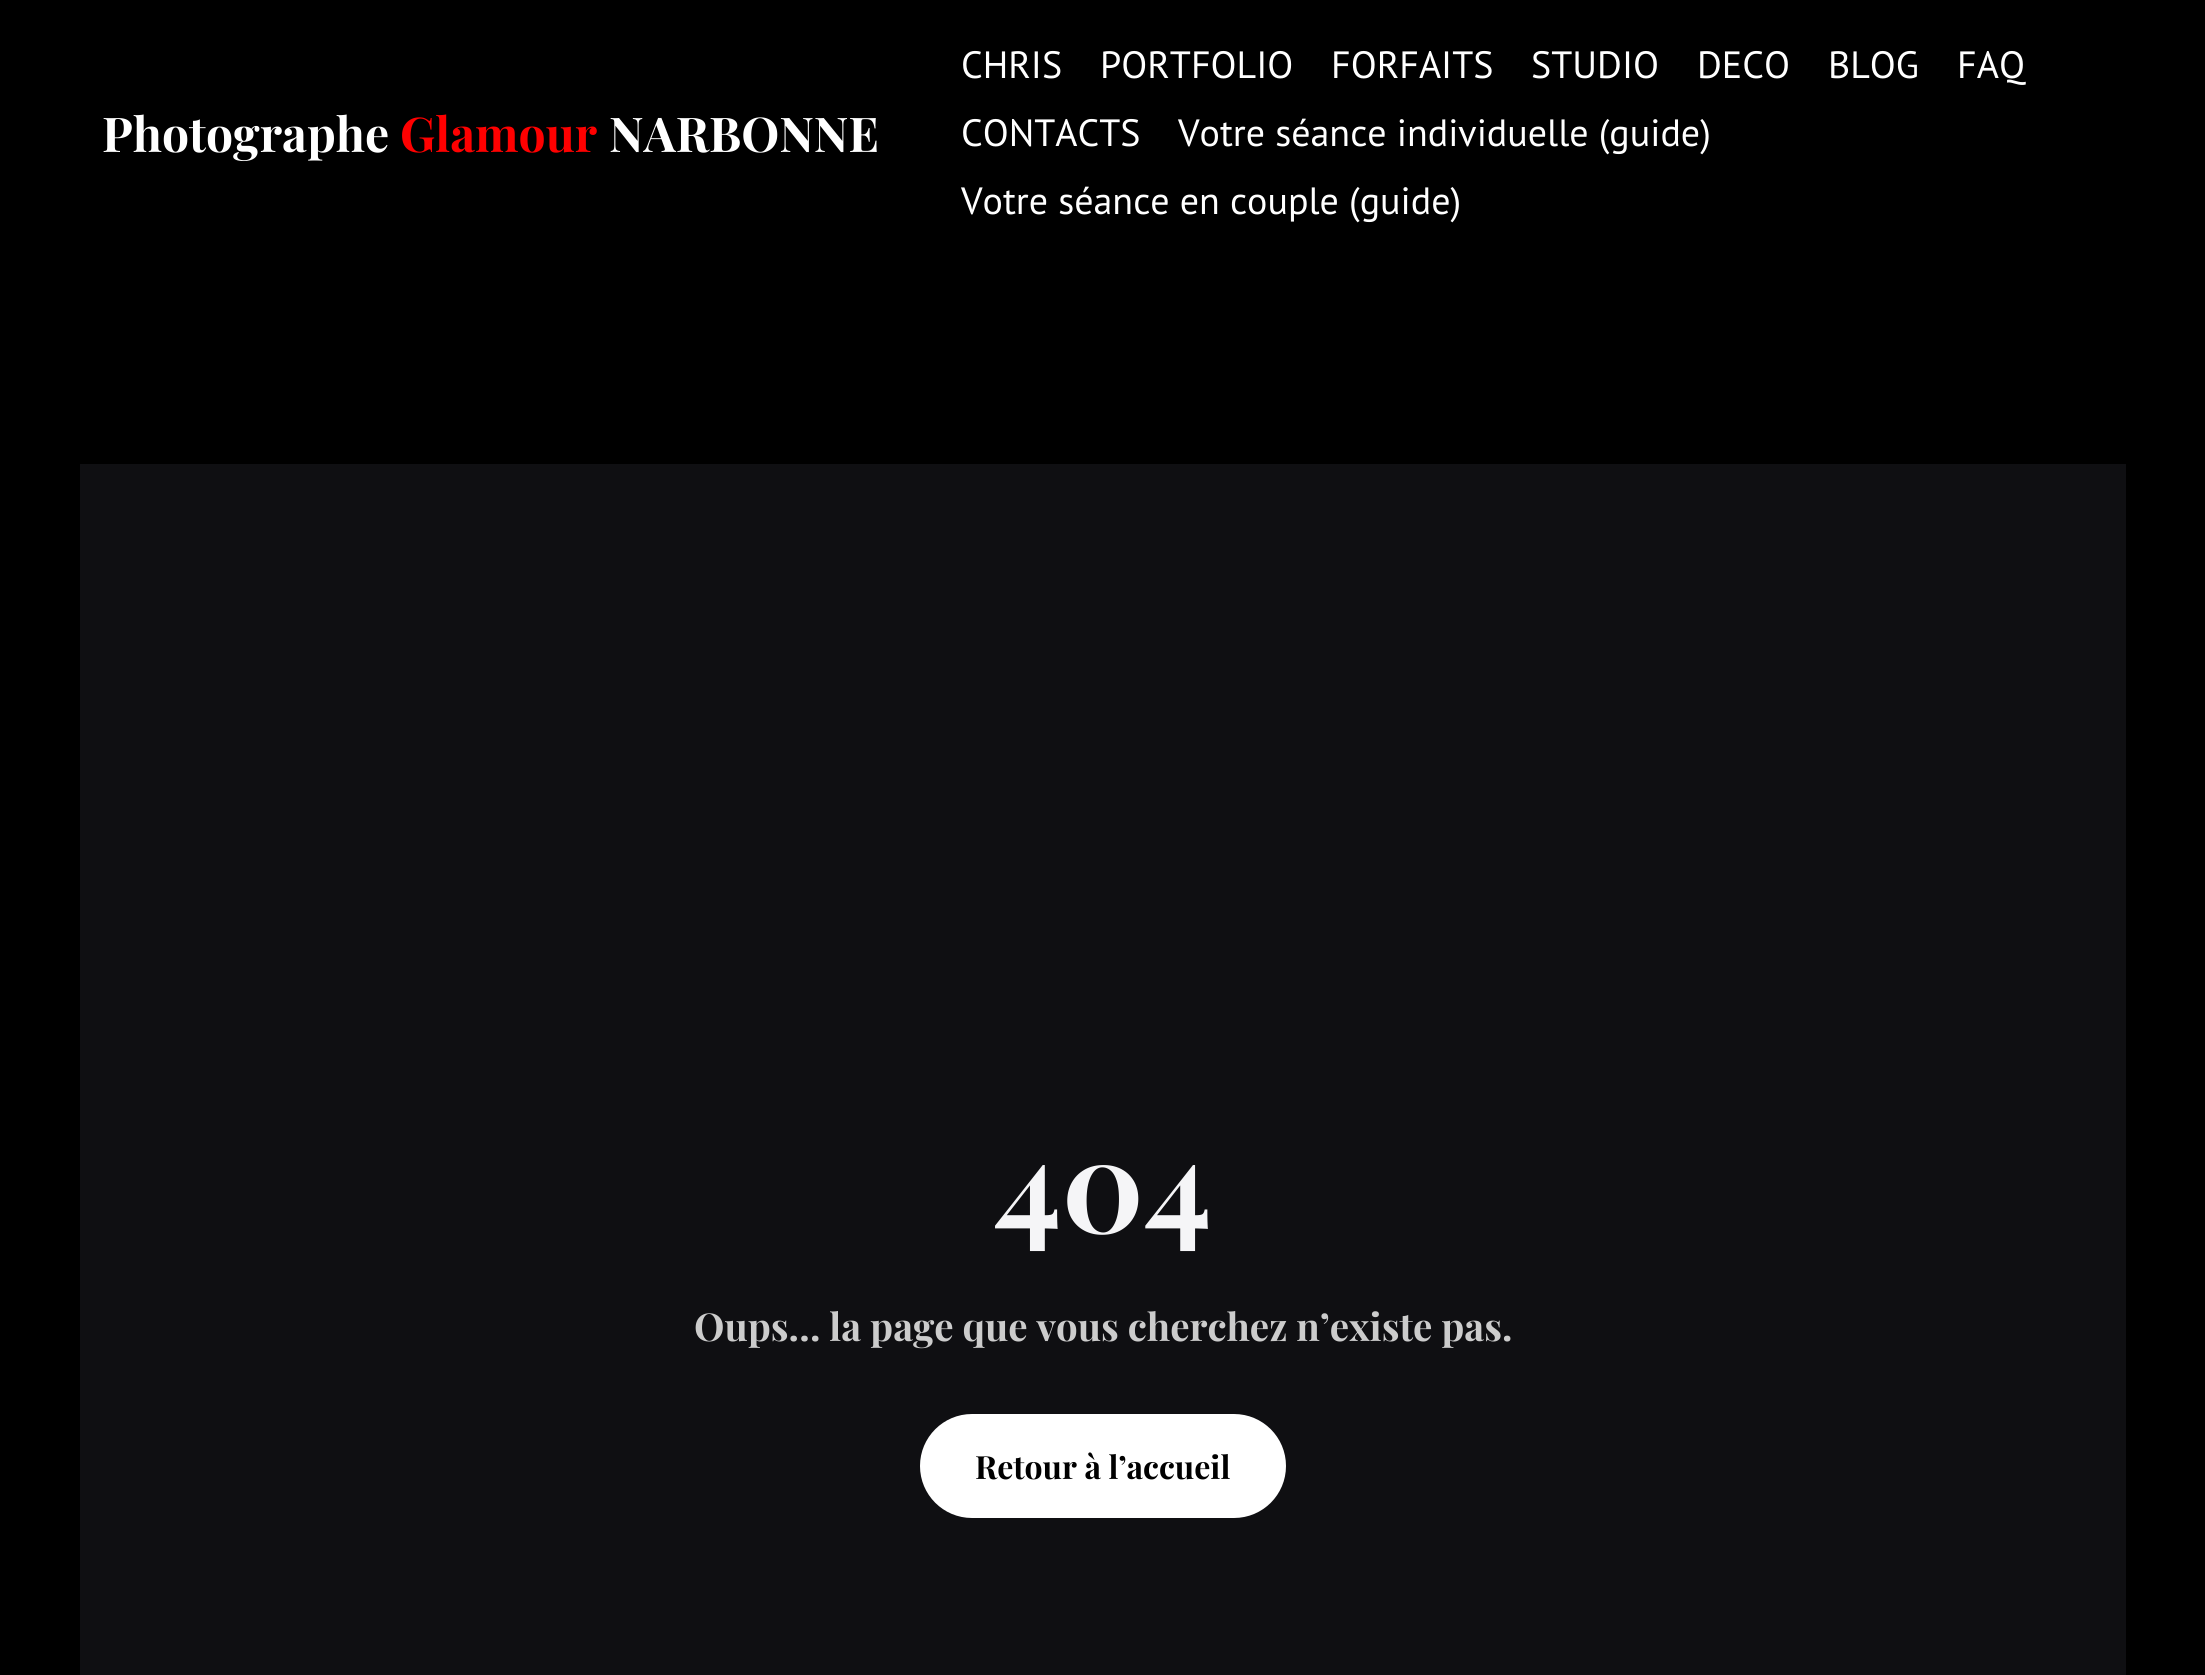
#include <cairo.h>
#include <math.h>
#include <stddef.h>

typedef struct { double x, y; const char *s; } line_t;

static void ink(cairo_t *ctx, unsigned color) {
    cairo_set_source_rgb(ctx, (color >> 16) / 255.0, (color >> 8 & 255) / 255.0, (color & 255) / 255.0);
}

static void round_path(cairo_t *ctx, double x, double y, double w, double h, double r) {
    cairo_new_sub_path(ctx);
    cairo_arc(ctx, x + w - r, y + h - r, r, 0, M_PI / 2);
    cairo_arc(ctx, x + r, y + h - r, r, M_PI / 2, M_PI);
    cairo_arc(ctx, x + r, y + r, r, M_PI, 1.5 * M_PI);
    cairo_arc(ctx, x + w - r, y + r, r, 1.5 * M_PI, 2 * M_PI);
    cairo_close_path(ctx);
}

int main(void) {
    cairo_surface_t *surface = cairo_image_surface_create(CAIRO_FORMAT_RGB24, 2205, 1675);
    cairo_t *ctx = cairo_create(surface);
    cairo_font_options_t *options = cairo_font_options_create();
    cairo_font_options_set_hint_metrics(options, CAIRO_HINT_METRICS_OFF);
    cairo_font_options_set_hint_style(options, CAIRO_HINT_STYLE_NONE);
    cairo_set_font_options(ctx, options);
    cairo_set_miter_limit(ctx, 4);
    ink(ctx, 0x000000);
    cairo_paint(ctx);
    cairo_select_font_face(ctx, "Playfair Display", CAIRO_FONT_SLANT_NORMAL, CAIRO_FONT_WEIGHT_BOLD);
    cairo_set_font_size(ctx, 48);
    ink(ctx, 0xFFFFFF);
    cairo_move_to(ctx, 102, 152);
    cairo_show_text(ctx, "Photographe");
    ink(ctx, 0xFF0000);
    cairo_move_to(ctx, 400, 152);
    cairo_show_text(ctx, "Glamour");
    ink(ctx, 0xFFFFFF);
    cairo_move_to(ctx, 609, 152);
    cairo_show_text(ctx, "NARBONNE");
    cairo_select_font_face(ctx, "PT Sans", CAIRO_FONT_SLANT_NORMAL, CAIRO_FONT_WEIGHT_NORMAL);
    cairo_set_font_size(ctx, 38);
    {
        static const line_t items[] = {
            {961, 78, "CHRIS"},
            {1100, 78, "PORTFOLIO"},
            {1331, 78, "FORFAITS"},
            {1531, 78, "STUDIO"},
            {1697, 78, "DECO"},
            {1828, 78, "BLOG"},
            {1957, 78, "FAQ"},
            {961, 146, "CONTACTS"},
            {1178, 146, "Votre séance individuelle (guide)"},
            {961, 214, "Votre séance en couple (guide)"},
        };
        for (size_t i = 0; i < sizeof items / sizeof *items; i++) {
            cairo_move_to(ctx, items[i].x, items[i].y);
            cairo_show_text(ctx, items[i].s);
        }
    }
    ink(ctx, 0x0F0F12);
    cairo_rectangle(ctx, 80, 464, 2046, 1211);
    cairo_fill(ctx);
    cairo_select_font_face(ctx, "Playfair Display", CAIRO_FONT_SLANT_NORMAL, CAIRO_FONT_WEIGHT_BOLD);
    cairo_set_font_size(ctx, 128);
    ink(ctx, 0xF5F5F7);
    cairo_move_to(ctx, 994, 1233);
    cairo_show_text(ctx, "404");
    cairo_set_font_size(ctx, 38.4);
    ink(ctx, 0xCCCCCC);
    cairo_move_to(ctx, 694, 1341);
    cairo_show_text(ctx, "Oups… la page que vous cherchez n’existe pas.");
    ink(ctx, 0xFFFFFF);
    round_path(ctx, 920, 1414, 366, 104, 52);
    cairo_fill(ctx);
    cairo_set_font_size(ctx, 32);
    ink(ctx, 0x000000);
    cairo_move_to(ctx, 975, 1479);
    cairo_show_text(ctx, "Retour à l’accueil");
    cairo_surface_write_to_png(surface, "image.png");
    cairo_font_options_destroy(options);
    cairo_destroy(ctx);
    cairo_surface_destroy(surface);
    return 0;
}
